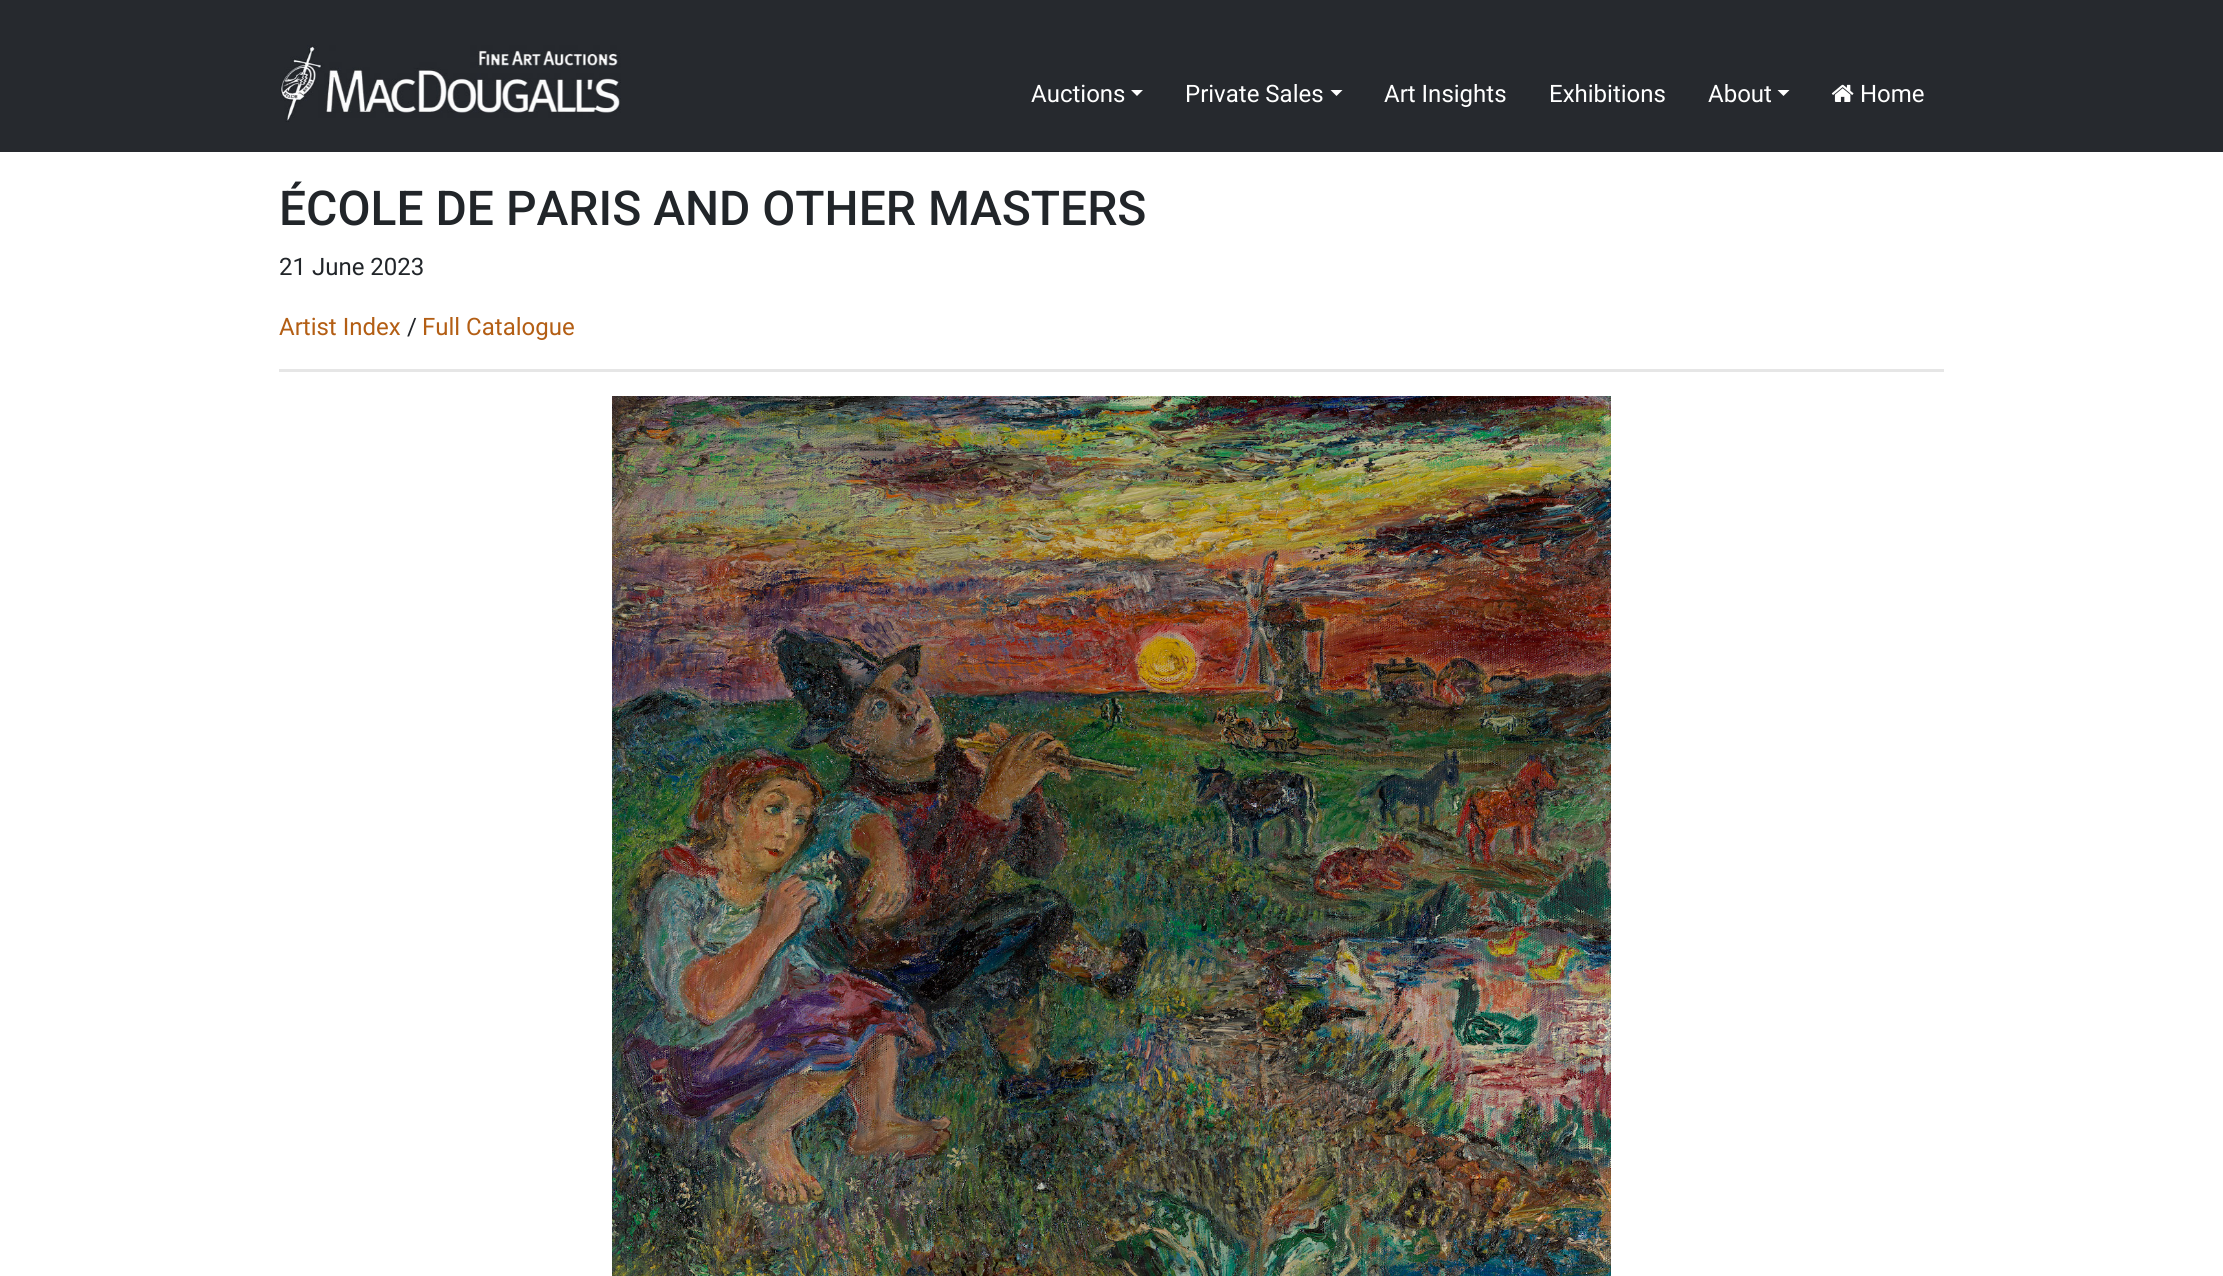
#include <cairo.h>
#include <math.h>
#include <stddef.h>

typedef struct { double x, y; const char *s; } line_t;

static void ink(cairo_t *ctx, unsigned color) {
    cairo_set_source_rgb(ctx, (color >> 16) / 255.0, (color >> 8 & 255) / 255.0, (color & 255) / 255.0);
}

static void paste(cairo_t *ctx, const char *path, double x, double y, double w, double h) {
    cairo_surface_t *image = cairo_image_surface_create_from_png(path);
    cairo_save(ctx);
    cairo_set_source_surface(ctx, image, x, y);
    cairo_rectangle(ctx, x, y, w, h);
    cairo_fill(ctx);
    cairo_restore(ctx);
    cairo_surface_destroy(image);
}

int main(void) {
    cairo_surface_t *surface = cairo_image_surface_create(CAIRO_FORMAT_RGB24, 2223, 1276);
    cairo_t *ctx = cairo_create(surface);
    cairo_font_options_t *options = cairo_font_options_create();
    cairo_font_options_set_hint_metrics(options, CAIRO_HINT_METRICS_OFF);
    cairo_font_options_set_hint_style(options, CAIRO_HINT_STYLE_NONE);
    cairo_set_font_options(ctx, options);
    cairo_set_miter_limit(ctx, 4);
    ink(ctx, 0xFFFFFF);
    cairo_paint(ctx);
    ink(ctx, 0x26292E);
    cairo_rectangle(ctx, 0, 0, 2223, 152);
    cairo_fill(ctx);
    paste(ctx, "media/1.png", 280, 45, 341, 77);
    cairo_select_font_face(ctx, "Roboto", CAIRO_FONT_SLANT_NORMAL, CAIRO_FONT_WEIGHT_NORMAL);
    cairo_set_font_size(ctx, 24);
    ink(ctx, 0xFFFFFF);
    cairo_move_to(ctx, 1031, 102);
    cairo_show_text(ctx, "Auctions");
    cairo_new_path(ctx);
    cairo_move_to(ctx, 1131, 90);
    cairo_line_to(ctx, 1143, 90);
    cairo_line_to(ctx, 1137, 96);
    cairo_close_path(ctx);
    cairo_fill(ctx);
    cairo_move_to(ctx, 1185, 102);
    cairo_show_text(ctx, "Private Sales");
    cairo_new_path(ctx);
    cairo_move_to(ctx, 1330.5, 90);
    cairo_line_to(ctx, 1342.5, 90);
    cairo_line_to(ctx, 1336.5, 96);
    cairo_close_path(ctx);
    cairo_fill(ctx);
    {
        static const line_t items[] = {
            {1384, 102, "Art Insights"},
            {1549, 102, "Exhibitions"},
            {1708, 102, "About"},
        };
        for (size_t i = 0; i < sizeof items / sizeof *items; i++) {
            cairo_move_to(ctx, items[i].x, items[i].y);
            cairo_show_text(ctx, items[i].s);
        }
    }
    cairo_new_path(ctx);
    cairo_move_to(ctx, 1777.5, 90);
    cairo_line_to(ctx, 1789.5, 90);
    cairo_line_to(ctx, 1783.5, 96);
    cairo_close_path(ctx);
    cairo_fill(ctx);
    paste(ctx, "media/2.png", 1831, 84, 23, 18);
    cairo_move_to(ctx, 1860, 102);
    cairo_show_text(ctx, "Home");
    cairo_select_font_face(ctx, "Roboto Medium", CAIRO_FONT_SLANT_NORMAL, CAIRO_FONT_WEIGHT_NORMAL);
    cairo_set_font_size(ctx, 48);
    ink(ctx, 0x212529);
    cairo_move_to(ctx, 279, 225);
    cairo_show_text(ctx, "ÉCOLE DE PARIS AND OTHER MASTERS");
    cairo_select_font_face(ctx, "Roboto", CAIRO_FONT_SLANT_NORMAL, CAIRO_FONT_WEIGHT_NORMAL);
    cairo_set_font_size(ctx, 24);
    cairo_move_to(ctx, 279, 275);
    cairo_show_text(ctx, "21 June 2023");
    ink(ctx, 0xB35E14);
    cairo_move_to(ctx, 279, 335);
    cairo_show_text(ctx, "Artist Index");
    ink(ctx, 0x212529);
    cairo_move_to(ctx, 407, 335);
    cairo_show_text(ctx, "/");
    ink(ctx, 0xB35E14);
    cairo_move_to(ctx, 422, 335);
    cairo_show_text(ctx, "Full Catalogue");
    ink(ctx, 0xE6E6E6);
    cairo_rectangle(ctx, 279, 369, 1665, 3);
    cairo_fill(ctx);
    paste(ctx, "media/3.png", 612, 396, 999, 880);
    cairo_surface_write_to_png(surface, "image.png");
    cairo_font_options_destroy(options);
    cairo_destroy(ctx);
    cairo_surface_destroy(surface);
    return 0;
}
